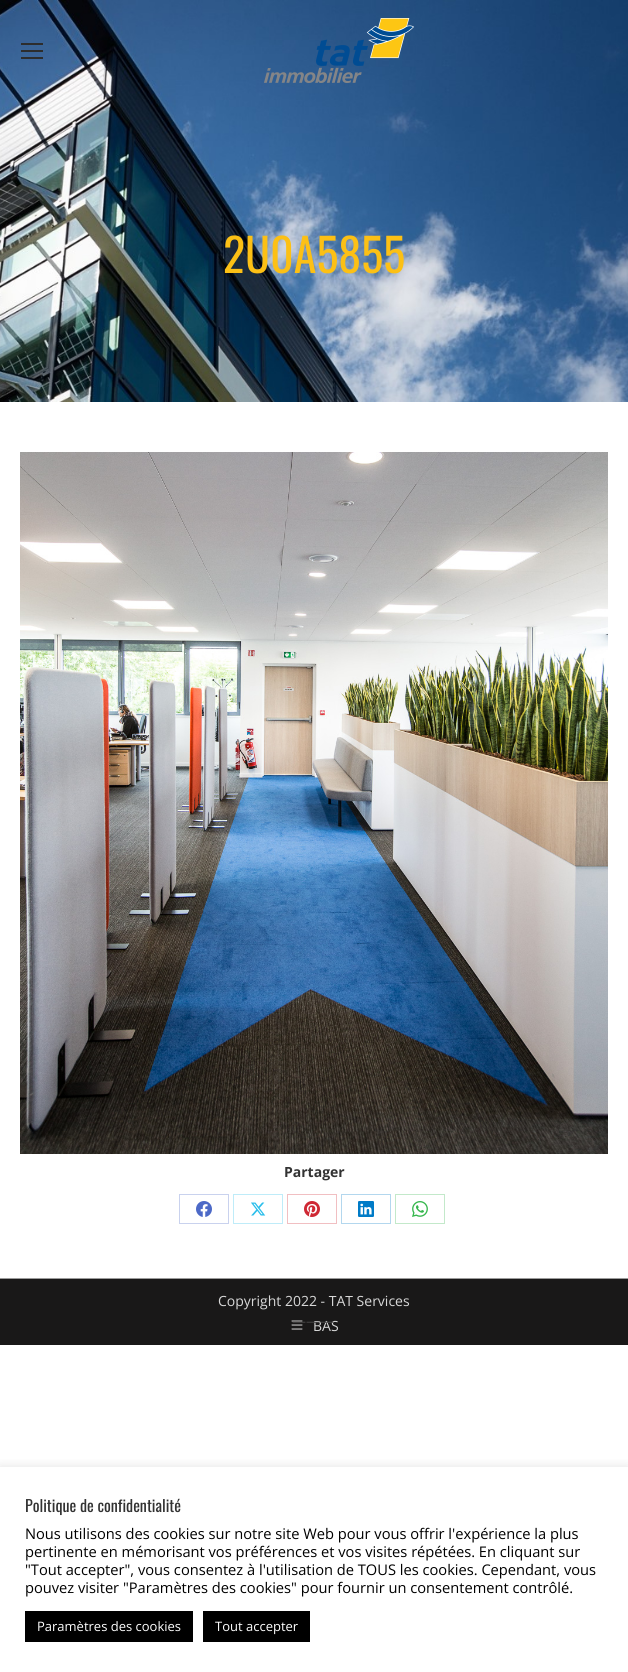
#include <cairo.h>
#include <math.h>
#include <stddef.h>

typedef struct { double x, y; const char *s; } line_t;
typedef struct { double x, y, w, h; unsigned color; } box_t;

static void ink(cairo_t *ctx, unsigned color) {
    cairo_set_source_rgb(ctx, (color >> 16) / 255.0, (color >> 8 & 255) / 255.0, (color & 255) / 255.0);
}

static void round_path(cairo_t *ctx, double x, double y, double w, double h, double r) {
    cairo_new_sub_path(ctx);
    cairo_arc(ctx, x + w - r, y + h - r, r, 0, M_PI / 2);
    cairo_arc(ctx, x + r, y + h - r, r, M_PI / 2, M_PI);
    cairo_arc(ctx, x + r, y + r, r, M_PI, 1.5 * M_PI);
    cairo_arc(ctx, x + w - r, y + r, r, 1.5 * M_PI, 2 * M_PI);
    cairo_close_path(ctx);
}

static void blur_box(cairo_t *ctx, double x, double y, double w, double h, double r, double blur, double alpha) {
    cairo_push_group_with_content(ctx, CAIRO_CONTENT_ALPHA);
    cairo_set_operator(ctx, CAIRO_OPERATOR_SOURCE);
    for (int i = 15; i >= -15 && fmin(w, h) + blur * i / 3 > 0; i -= 2) {
        double e = blur * i / 6;
        cairo_set_source_rgba(ctx, 0, 0, 0, alpha * erfc((i - 1) / 8.5) / 2);
        round_path(ctx, x - e, y - e, w + 2 * e, h + 2 * e, fmax(0, fmin(r + e + blur * .6, fmin(w, h) / 2 + e)));
        cairo_fill(ctx);
    }
    cairo_pattern_t *soft = cairo_pop_group(ctx);
    cairo_mask(ctx, soft);
    cairo_pattern_destroy(soft);
}

static void paste(cairo_t *ctx, const char *path, double x, double y, double w, double h) {
    cairo_surface_t *image = cairo_image_surface_create_from_png(path);
    cairo_save(ctx);
    cairo_set_source_surface(ctx, image, x, y);
    cairo_rectangle(ctx, x, y, w, h);
    cairo_fill(ctx);
    cairo_restore(ctx);
    cairo_surface_destroy(image);
}

int main(void) {
    cairo_surface_t *surface = cairo_image_surface_create(CAIRO_FORMAT_RGB24, 628, 1672);
    cairo_t *ctx = cairo_create(surface);
    cairo_font_options_t *options = cairo_font_options_create();
    cairo_font_options_set_hint_metrics(options, CAIRO_HINT_METRICS_OFF);
    cairo_font_options_set_hint_style(options, CAIRO_HINT_STYLE_NONE);
    cairo_set_font_options(ctx, options);
    cairo_set_miter_limit(ctx, 4);
    ink(ctx, 0xFFFFFF);
    cairo_paint(ctx);
    paste(ctx, "media/2.png", 0, 0, 628, 402);
    {
        static const box_t items[] = {
            {21, 43, 22, 2, 0x2D2D2D},
            {21, 50, 22, 2, 0x2D2D2D},
            {21, 57, 22, 2, 0x2D2D2D},
        };
        for (size_t i = 0; i < sizeof items / sizeof *items; i++) {
            ink(ctx, items[i].color);
            cairo_rectangle(ctx, items[i].x, items[i].y, items[i].w, items[i].h);
            cairo_fill(ctx);
        }
    }
    paste(ctx, "media/1.png", 264, 18, 150, 65);
    cairo_select_font_face(ctx, "Oswald", CAIRO_FONT_SLANT_NORMAL, CAIRO_FONT_WEIGHT_NORMAL);
    cairo_set_font_size(ctx, 46);
    ink(ctx, 0xFCC015);
    cairo_move_to(ctx, 223, 273);
    cairo_show_text(ctx, "2U0A5855");
    paste(ctx, "media/3.png", 20, 452, 588, 702);
    cairo_select_font_face(ctx, "Open Sans", CAIRO_FONT_SLANT_NORMAL, CAIRO_FONT_WEIGHT_BOLD);
    cairo_set_font_size(ctx, 14);
    ink(ctx, 0x333333);
    cairo_move_to(ctx, 284, 1177);
    cairo_show_text(ctx, "Partager");
    cairo_rectangle(ctx, 179.5, 1194.5, 49, 29);
    ink(ctx, 0xC9D2EE);
    cairo_set_line_width(ctx, 1);
    cairo_stroke(ctx);
    paste(ctx, "media/4.png", 196, 1201, 16, 16);
    cairo_rectangle(ctx, 233.5, 1194.5, 49, 29);
    ink(ctx, 0xBFECF9);
    cairo_stroke(ctx);
    paste(ctx, "media/5.png", 251, 1202, 15, 14);
    cairo_rectangle(ctx, 287.5, 1194.5, 49, 29);
    ink(ctx, 0xF1BFC2);
    cairo_stroke(ctx);
    paste(ctx, "media/6.png", 304, 1201, 16, 16);
    cairo_rectangle(ctx, 341.5, 1194.5, 49, 29);
    ink(ctx, 0xB3D7EE);
    cairo_stroke(ctx);
    paste(ctx, "media/7.png", 358, 1201, 16, 16);
    cairo_rectangle(ctx, 395.5, 1194.5, 49, 29);
    ink(ctx, 0xC3E9CA);
    cairo_stroke(ctx);
    paste(ctx, "media/8.png", 412, 1201, 16, 16);
    ink(ctx, 0x191818);
    cairo_rectangle(ctx, 0, 1279, 628, 66);
    cairo_fill(ctx);
    ink(ctx, 0x9B9B9B);
    cairo_rectangle(ctx, 0, 1278, 628, 1);
    cairo_fill(ctx);
    cairo_select_font_face(ctx, "Open Sans", CAIRO_FONT_SLANT_NORMAL, CAIRO_FONT_WEIGHT_NORMAL);
    ink(ctx, 0xD8D8D8);
    cairo_move_to(ctx, 218, 1306);
    cairo_show_text(ctx, "Copyright 2022 - TAT Services");
    paste(ctx, "media/9.png", 291, 1320, 12, 10);
    cairo_move_to(ctx, 313, 1331);
    cairo_show_text(ctx, "BAS");
    ink(ctx, 0x454444);
    cairo_move_to(ctx, 292, 1326);
    cairo_show_text(ctx, "———");
    cairo_save(ctx);
    cairo_rectangle(ctx, 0, 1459, 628, 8);
    cairo_clip(ctx);
    ink(ctx, 0xACABAB);
    blur_box(ctx, 0, 1466, 628, 205, 0, 5, 0.3);
    cairo_restore(ctx);
    cairo_select_font_face(ctx, "Oswald", CAIRO_FONT_SLANT_NORMAL, CAIRO_FONT_WEIGHT_NORMAL);
    cairo_set_font_size(ctx, 16);
    ink(ctx, 0x333333);
    cairo_move_to(ctx, 25, 1512);
    cairo_show_text(ctx, "Politique de confidentialité");
    cairo_select_font_face(ctx, "Open Sans", CAIRO_FONT_SLANT_NORMAL, CAIRO_FONT_WEIGHT_NORMAL);
    cairo_set_font_size(ctx, 14.65);
    ink(ctx, 0x000000);
    {
        static const line_t items[] = {
            {25, 1539, "Nous utilisons des cookies sur notre site Web pour vous offrir l'expérience la plus"},
            {25, 1557, "pertinente en mémorisant vos préférences et vos visites répétées. En cliquant sur"},
            {25, 1575, "\"Tout accepter\", vous consentez à l'utilisation de TOUS les cookies. Cependant, vous"},
            {25, 1593, "pouvez visiter \"Paramètres des cookies\" pour fournir un consentement contrôlé."},
        };
        for (size_t i = 0; i < sizeof items / sizeof *items; i++) {
            cairo_move_to(ctx, items[i].x, items[i].y);
            cairo_show_text(ctx, items[i].s);
        }
    }
    cairo_rectangle(ctx, 25, 1611, 168, 31);
    cairo_fill(ctx);
    cairo_set_font_size(ctx, 13);
    ink(ctx, 0xFFFFFF);
    cairo_move_to(ctx, 37, 1631);
    cairo_show_text(ctx, "Paramètres des cookies");
    ink(ctx, 0x000000);
    cairo_rectangle(ctx, 203, 1611, 107, 31);
    cairo_fill(ctx);
    ink(ctx, 0xFFFFFF);
    cairo_move_to(ctx, 215, 1631);
    cairo_show_text(ctx, "Tout accepter");
    cairo_surface_write_to_png(surface, "image.png");
    cairo_font_options_destroy(options);
    cairo_destroy(ctx);
    cairo_surface_destroy(surface);
    return 0;
}
